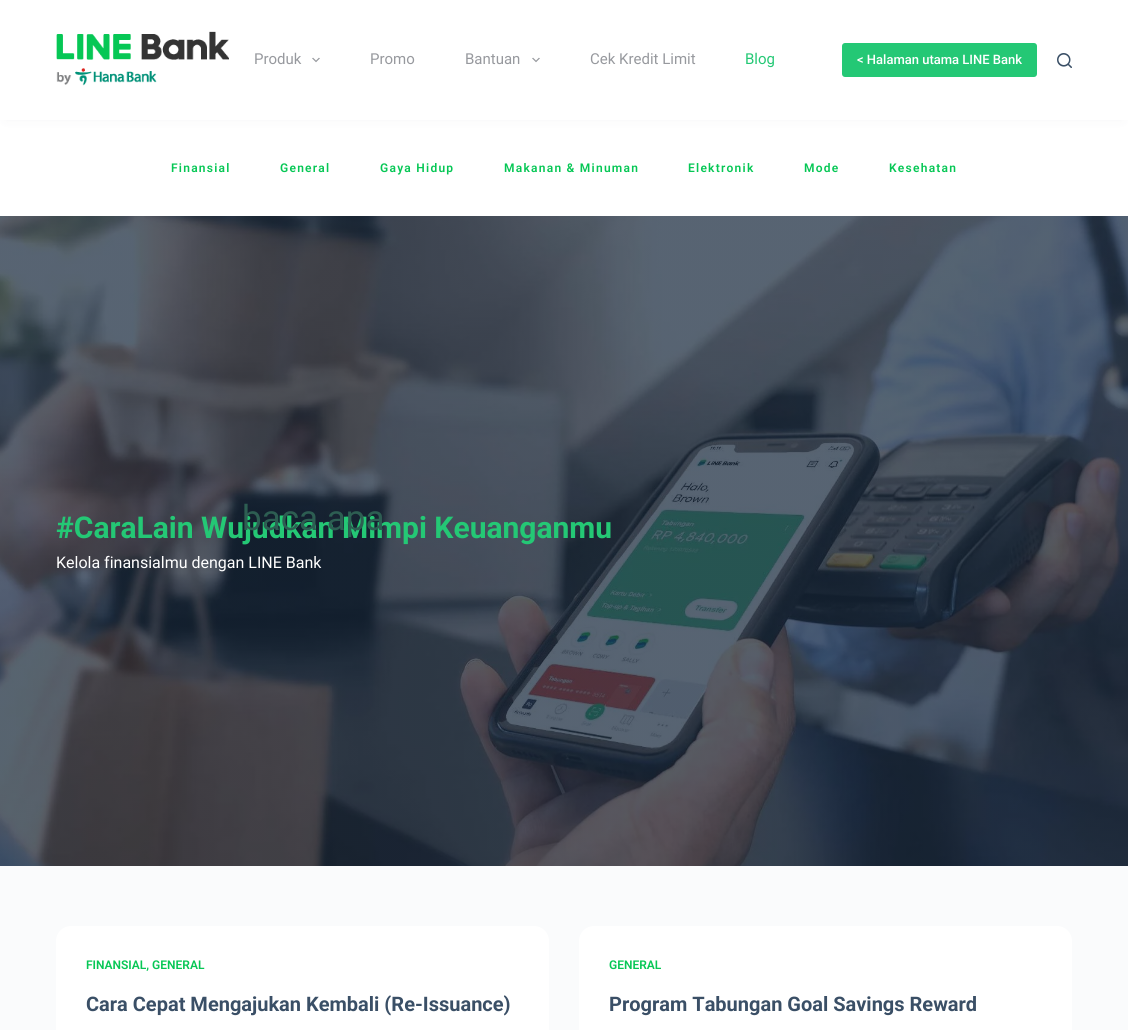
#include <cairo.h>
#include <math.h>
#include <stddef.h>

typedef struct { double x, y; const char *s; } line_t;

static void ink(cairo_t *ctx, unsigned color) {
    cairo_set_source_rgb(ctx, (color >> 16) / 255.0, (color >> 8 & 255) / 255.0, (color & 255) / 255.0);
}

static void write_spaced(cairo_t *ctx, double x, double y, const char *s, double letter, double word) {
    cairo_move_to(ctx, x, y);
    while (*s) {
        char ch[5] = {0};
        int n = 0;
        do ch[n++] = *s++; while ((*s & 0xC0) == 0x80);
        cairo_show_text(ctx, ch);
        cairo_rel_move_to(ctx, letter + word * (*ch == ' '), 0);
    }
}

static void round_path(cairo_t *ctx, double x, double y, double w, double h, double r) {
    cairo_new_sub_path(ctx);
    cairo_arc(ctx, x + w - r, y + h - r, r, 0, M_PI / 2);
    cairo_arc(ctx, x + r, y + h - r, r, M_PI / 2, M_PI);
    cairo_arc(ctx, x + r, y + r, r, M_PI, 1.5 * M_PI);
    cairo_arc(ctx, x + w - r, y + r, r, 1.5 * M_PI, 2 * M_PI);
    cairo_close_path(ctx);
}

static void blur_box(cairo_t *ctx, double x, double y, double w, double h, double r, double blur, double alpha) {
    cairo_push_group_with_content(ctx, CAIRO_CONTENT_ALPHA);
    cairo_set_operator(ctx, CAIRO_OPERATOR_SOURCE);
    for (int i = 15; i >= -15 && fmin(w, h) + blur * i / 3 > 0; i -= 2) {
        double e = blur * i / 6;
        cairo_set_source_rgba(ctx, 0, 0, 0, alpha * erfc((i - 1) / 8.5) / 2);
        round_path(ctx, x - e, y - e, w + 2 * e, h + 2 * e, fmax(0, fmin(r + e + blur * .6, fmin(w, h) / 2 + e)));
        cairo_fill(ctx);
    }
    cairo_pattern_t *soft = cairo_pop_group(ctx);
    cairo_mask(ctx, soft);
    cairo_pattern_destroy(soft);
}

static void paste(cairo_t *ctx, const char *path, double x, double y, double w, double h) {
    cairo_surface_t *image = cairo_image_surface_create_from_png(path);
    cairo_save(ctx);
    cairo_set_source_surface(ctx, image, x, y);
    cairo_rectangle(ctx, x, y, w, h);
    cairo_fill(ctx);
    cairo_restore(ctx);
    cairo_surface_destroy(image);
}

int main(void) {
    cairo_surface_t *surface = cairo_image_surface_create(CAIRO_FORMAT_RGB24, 1128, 1030);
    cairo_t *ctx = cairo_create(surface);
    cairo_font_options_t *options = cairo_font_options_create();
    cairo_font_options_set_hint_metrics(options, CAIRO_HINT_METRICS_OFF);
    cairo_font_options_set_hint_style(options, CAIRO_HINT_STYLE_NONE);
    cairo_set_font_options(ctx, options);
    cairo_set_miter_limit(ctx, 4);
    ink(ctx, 0xFAFBFC);
    cairo_paint(ctx);
    ink(ctx, 0xFFFFFF);
    cairo_rectangle(ctx, 0, 120, 1128, 96);
    cairo_fill(ctx);
    ink(ctx, 0x2C3E50);
    blur_box(ctx, 5, 10, 1118, 110, 0, 5, 0.05);
    ink(ctx, 0xFFFFFF);
    cairo_rectangle(ctx, 0, 0, 1128, 120);
    cairo_fill(ctx);
    paste(ctx, "media/1.png", 56, 31, 173, 55);
    cairo_select_font_face(ctx, "Roboto", CAIRO_FONT_SLANT_NORMAL, CAIRO_FONT_WEIGHT_NORMAL);
    cairo_set_font_size(ctx, 15);
    ink(ctx, 0x97999E);
    cairo_move_to(ctx, 254, 64);
    cairo_show_text(ctx, "Produk");
    paste(ctx, "media/2.png", 312, 57, 8, 6);
    cairo_move_to(ctx, 370, 64);
    cairo_show_text(ctx, "Promo");
    cairo_move_to(ctx, 465, 64);
    cairo_show_text(ctx, "Bantuan");
    paste(ctx, "media/2.png", 532, 57, 8, 6);
    cairo_move_to(ctx, 590, 64);
    cairo_show_text(ctx, "Cek Kredit Limit");
    ink(ctx, 0x24C875);
    cairo_move_to(ctx, 745, 64);
    cairo_show_text(ctx, "Blog");
    round_path(ctx, 842, 43, 195, 34, 3);
    cairo_fill(ctx);
    cairo_select_font_face(ctx, "Roboto Medium", CAIRO_FONT_SLANT_NORMAL, CAIRO_FONT_WEIGHT_NORMAL);
    cairo_set_font_size(ctx, 13);
    ink(ctx, 0xFFFFFF);
    cairo_move_to(ctx, 857, 64);
    cairo_show_text(ctx, "< Halaman utama LINE Bank");
    paste(ctx, "media/3.png", 1057, 53, 15, 15);
    cairo_select_font_face(ctx, "Roboto SemiBold", CAIRO_FONT_SLANT_NORMAL, CAIRO_FONT_WEIGHT_NORMAL);
    cairo_set_font_size(ctx, 12);
    ink(ctx, 0x06C755);
    {
        static const line_t items[] = {
            {171, 172, "Finansial"},
            {280, 172, "General"},
            {380, 172, "Gaya Hidup"},
            {504, 172, "Makanan & Minuman"},
            {688, 172, "Elektronik"},
            {804, 172, "Mode"},
            {889, 172, "Kesehatan"},
        };
        for (size_t i = 0; i < sizeof items / sizeof *items; i++) {
            write_spaced(ctx, items[i].x, items[i].y, items[i].s, 1.25, 0);
        }
    }
    paste(ctx, "media/4.png", 0, 216, 1128, 650);
    cairo_select_font_face(ctx, "Roboto", CAIRO_FONT_SLANT_NORMAL, CAIRO_FONT_WEIGHT_BOLD);
    cairo_set_font_size(ctx, 30);
    ink(ctx, 0x24C875);
    cairo_move_to(ctx, 56, 538);
    cairo_show_text(ctx, "#CaraLain Wujudkan Mimpi Keuanganmu");
    cairo_select_font_face(ctx, "Roboto", CAIRO_FONT_SLANT_NORMAL, CAIRO_FONT_WEIGHT_NORMAL);
    cairo_set_font_size(ctx, 16);
    ink(ctx, 0xFFFFFF);
    cairo_move_to(ctx, 56, 568);
    cairo_show_text(ctx, "Kelola finansialmu dengan LINE Bank");
    round_path(ctx, 56, 926, 493, 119, 15);
    cairo_fill(ctx);
    cairo_select_font_face(ctx, "Roboto SemiBold", CAIRO_FONT_SLANT_NORMAL, CAIRO_FONT_WEIGHT_NORMAL);
    cairo_set_font_size(ctx, 12);
    ink(ctx, 0x06C755);
    cairo_move_to(ctx, 86, 969);
    cairo_show_text(ctx, "FINANSIAL, GENERAL");
    cairo_select_font_face(ctx, "Roboto", CAIRO_FONT_SLANT_NORMAL, CAIRO_FONT_WEIGHT_BOLD);
    cairo_set_font_size(ctx, 20);
    ink(ctx, 0x3A4F66);
    cairo_move_to(ctx, 86, 1011);
    cairo_show_text(ctx, "Cara Cepat Mengajukan Kembali (Re-Issuance)");
    ink(ctx, 0xFFFFFF);
    round_path(ctx, 579, 926, 493, 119, 15);
    cairo_fill(ctx);
    cairo_select_font_face(ctx, "Roboto SemiBold", CAIRO_FONT_SLANT_NORMAL, CAIRO_FONT_WEIGHT_NORMAL);
    cairo_set_font_size(ctx, 12);
    ink(ctx, 0x06C755);
    cairo_move_to(ctx, 609, 969);
    cairo_show_text(ctx, "GENERAL");
    cairo_select_font_face(ctx, "Roboto", CAIRO_FONT_SLANT_NORMAL, CAIRO_FONT_WEIGHT_BOLD);
    cairo_set_font_size(ctx, 20);
    ink(ctx, 0x3A4F66);
    cairo_move_to(ctx, 609, 1011);
    cairo_show_text(ctx, "Program Tabungan Goal Savings Reward");
    cairo_select_font_face(ctx, "Roboto", CAIRO_FONT_SLANT_NORMAL, CAIRO_FONT_WEIGHT_NORMAL);
    cairo_set_font_size(ctx, 35);
    ink(ctx, 0x2D5E52);
    cairo_move_to(ctx, 242, 530);
    cairo_show_text(ctx, "baca apa");
    cairo_surface_write_to_png(surface, "image.png");
    cairo_font_options_destroy(options);
    cairo_destroy(ctx);
    cairo_surface_destroy(surface);
    return 0;
}
